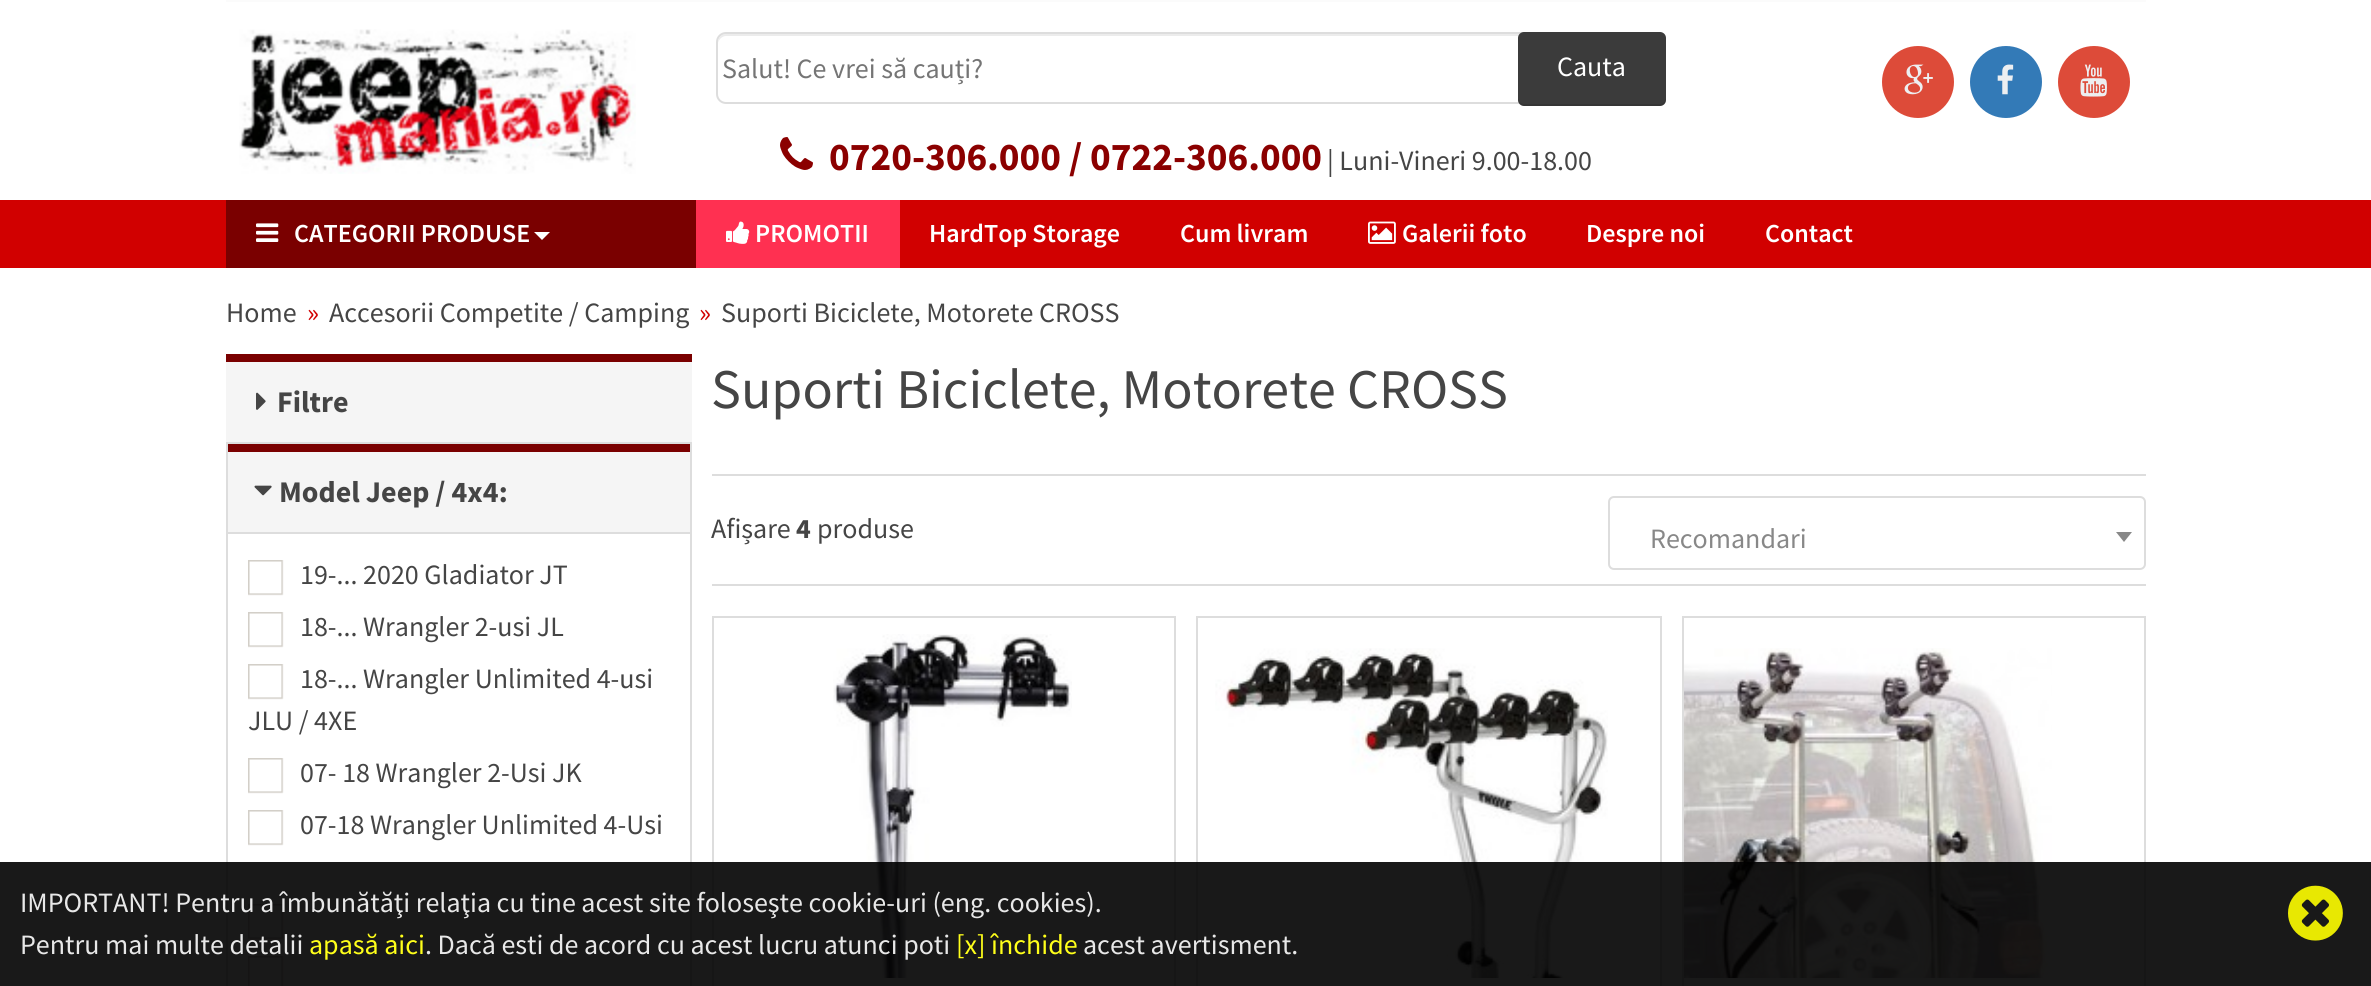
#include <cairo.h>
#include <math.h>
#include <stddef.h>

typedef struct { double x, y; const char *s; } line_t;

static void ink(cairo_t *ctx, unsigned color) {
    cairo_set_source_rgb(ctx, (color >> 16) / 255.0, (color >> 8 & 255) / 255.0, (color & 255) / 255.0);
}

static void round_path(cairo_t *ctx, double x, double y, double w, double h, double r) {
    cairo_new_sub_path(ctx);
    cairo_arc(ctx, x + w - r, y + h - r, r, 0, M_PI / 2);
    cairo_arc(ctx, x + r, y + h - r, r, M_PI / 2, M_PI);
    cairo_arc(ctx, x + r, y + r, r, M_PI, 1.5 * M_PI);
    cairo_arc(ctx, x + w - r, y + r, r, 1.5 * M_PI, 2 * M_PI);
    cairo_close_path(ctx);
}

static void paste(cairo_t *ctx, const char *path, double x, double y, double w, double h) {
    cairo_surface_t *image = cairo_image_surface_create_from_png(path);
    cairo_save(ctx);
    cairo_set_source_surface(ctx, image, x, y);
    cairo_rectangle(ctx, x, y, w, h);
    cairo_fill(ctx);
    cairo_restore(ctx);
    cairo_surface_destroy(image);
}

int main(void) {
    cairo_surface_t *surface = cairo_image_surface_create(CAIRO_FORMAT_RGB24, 2371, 986);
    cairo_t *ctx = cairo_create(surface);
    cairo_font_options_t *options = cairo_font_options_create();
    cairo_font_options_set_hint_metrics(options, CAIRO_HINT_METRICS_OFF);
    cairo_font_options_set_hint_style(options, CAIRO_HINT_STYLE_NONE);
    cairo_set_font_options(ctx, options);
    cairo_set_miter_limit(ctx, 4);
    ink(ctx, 0xFFFFFF);
    cairo_paint(ctx);
    paste(ctx, "media/1.png", 239, 29, 397, 145);
    ink(ctx, 0xFBFBFB);
    cairo_rectangle(ctx, 226, 0, 1920, 2);
    cairo_fill(ctx);
    ink(ctx, 0xECECEC);
    cairo_new_path(ctx);
    cairo_move_to(ctx, 726, 36);
    cairo_line_to(ctx, 1654, 36);
    cairo_line_to(ctx, 1654, 34);
    cairo_line_to(ctx, 726, 34);
    cairo_curve_to(ctx, 720, 34, 718, 39, 718, 44);
    cairo_curve_to(ctx, 718, 40, 722, 36, 726, 36);
    cairo_close_path(ctx);
    cairo_fill(ctx);
    cairo_new_path(ctx);
    cairo_move_to(ctx, 726, 33);
    cairo_line_to(ctx, 1655, 33);
    cairo_line_to(ctx, 1655, 103);
    cairo_line_to(ctx, 726, 103);
    cairo_curve_to(ctx, 721, 103, 717, 99, 717, 94);
    cairo_line_to(ctx, 717, 42);
    cairo_curve_to(ctx, 717, 37, 721, 33, 726, 33);
    cairo_close_path(ctx);
    ink(ctx, 0xDDDDDD);
    cairo_stroke(ctx);
    cairo_select_font_face(ctx, "Source Sans Pro", CAIRO_FONT_SLANT_NORMAL, CAIRO_FONT_WEIGHT_NORMAL);
    cairo_set_font_size(ctx, 28);
    ink(ctx, 0x757575);
    cairo_move_to(ctx, 722, 78);
    cairo_show_text(ctx, "Salut! Ce vrei să cauți?");
    ink(ctx, 0x3B3B3B);
    round_path(ctx, 1518, 32, 148, 74, 6);
    cairo_fill(ctx);
    cairo_set_source_rgba(ctx, 0, 0, 0, 0.1);
    cairo_new_path(ctx);
    cairo_move_to(ctx, 1518, 98);
    cairo_line_to(ctx, 1518, 100);
    cairo_curve_to(ctx, 1518, 103, 1521, 106, 1524, 106);
    cairo_line_to(ctx, 1660, 106);
    cairo_curve_to(ctx, 1663, 106, 1666, 103, 1666, 100);
    cairo_line_to(ctx, 1666, 98);
    cairo_curve_to(ctx, 1666, 101, 1663, 104, 1660, 104);
    cairo_line_to(ctx, 1524, 104);
    cairo_curve_to(ctx, 1521, 104, 1518, 101, 1518, 98);
    cairo_close_path(ctx);
    cairo_fill(ctx);
    ink(ctx, 0xFFFFFF);
    cairo_move_to(ctx, 1557, 76);
    cairo_show_text(ctx, "Cauta");
    paste(ctx, "media/2.png", 780, 137, 33, 33);
    cairo_select_font_face(ctx, "Source Sans Pro", CAIRO_FONT_SLANT_NORMAL, CAIRO_FONT_WEIGHT_BOLD);
    cairo_set_font_size(ctx, 39.25);
    ink(ctx, 0x8B0000);
    cairo_move_to(ctx, 829, 170);
    cairo_show_text(ctx, "0720-306.000 / 0722-306.000");
    cairo_select_font_face(ctx, "Source Sans Pro", CAIRO_FONT_SLANT_NORMAL, CAIRO_FONT_WEIGHT_NORMAL);
    cairo_set_font_size(ctx, 28);
    ink(ctx, 0x454545);
    cairo_move_to(ctx, 1327, 170);
    cairo_show_text(ctx, "| Luni-Vineri 9.00-18.00");
    ink(ctx, 0xDD4B39);
    cairo_new_path(ctx);
    cairo_arc(ctx, 1918, 82, 36, 0, 2 * M_PI);
    cairo_fill(ctx);
    paste(ctx, "media/3.png", 1904, 64, 29, 31);
    ink(ctx, 0x337AB7);
    cairo_arc(ctx, 2006, 82, 36, 0, 2 * M_PI);
    cairo_fill(ctx);
    paste(ctx, "media/4.png", 1997, 64, 17, 31);
    ink(ctx, 0xDD4B39);
    cairo_arc(ctx, 2094, 82, 36, 0, 2 * M_PI);
    cairo_fill(ctx);
    paste(ctx, "media/5.png", 2080, 64, 27, 33);
    ink(ctx, 0xD10000);
    cairo_rectangle(ctx, 0, 200, 2371, 68);
    cairo_fill(ctx);
    ink(ctx, 0x7A0000);
    cairo_rectangle(ctx, 226, 200, 470, 68);
    cairo_fill(ctx);
    paste(ctx, "media/6.png", 256, 223, 23, 19);
    cairo_select_font_face(ctx, "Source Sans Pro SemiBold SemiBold", CAIRO_FONT_SLANT_NORMAL, CAIRO_FONT_WEIGHT_NORMAL);
    cairo_set_font_size(ctx, 26);
    ink(ctx, 0xFFFFFF);
    cairo_move_to(ctx, 294, 242);
    cairo_show_text(ctx, "CATEGORII PRODUSE");
    cairo_new_path(ctx);
    cairo_move_to(ctx, 534, 232);
    cairo_line_to(ctx, 550, 232);
    cairo_line_to(ctx, 542, 240);
    cairo_close_path(ctx);
    cairo_fill(ctx);
    ink(ctx, 0xFF3051);
    cairo_rectangle(ctx, 696, 200, 204, 68);
    cairo_fill(ctx);
    paste(ctx, "media/7.png", 726, 221, 24, 23);
    ink(ctx, 0xFFFFFF);
    {
        static const line_t items[] = {
            {755, 242, "PROMOTII"},
            {929, 242, "HardTop Storage"},
            {1180, 242, "Cum livram"},
        };
        for (size_t i = 0; i < sizeof items / sizeof *items; i++) {
            cairo_move_to(ctx, items[i].x, items[i].y);
            cairo_show_text(ctx, items[i].s);
        }
    }
    paste(ctx, "media/8.png", 1368, 221, 28, 23);
    {
        static const line_t items[] = {
            {1402, 242, "Galerii foto"},
            {1586, 242, "Despre noi"},
            {1765, 242, "Contact"},
        };
        for (size_t i = 0; i < sizeof items / sizeof *items; i++) {
            cairo_move_to(ctx, items[i].x, items[i].y);
            cairo_show_text(ctx, items[i].s);
        }
    }
    cairo_select_font_face(ctx, "Source Sans Pro", CAIRO_FONT_SLANT_NORMAL, CAIRO_FONT_WEIGHT_NORMAL);
    cairo_set_font_size(ctx, 28);
    ink(ctx, 0x454545);
    cairo_move_to(ctx, 226, 322);
    cairo_show_text(ctx, "Home");
    ink(ctx, 0xD10000);
    cairo_move_to(ctx, 307, 322);
    cairo_show_text(ctx, "»");
    ink(ctx, 0x454545);
    cairo_move_to(ctx, 329, 322);
    cairo_show_text(ctx, "Accesorii Competite / Camping");
    ink(ctx, 0xD10000);
    cairo_move_to(ctx, 699, 322);
    cairo_show_text(ctx, "»");
    ink(ctx, 0x454545);
    cairo_move_to(ctx, 721, 322);
    cairo_show_text(ctx, "Suporti Biciclete, Motorete CROSS");
    ink(ctx, 0xF5F5F5);
    cairo_rectangle(ctx, 226, 362, 466, 80);
    cairo_fill(ctx);
    ink(ctx, 0x7A0000);
    cairo_rectangle(ctx, 226, 354, 466, 8);
    cairo_fill(ctx);
    paste(ctx, "media/9.png", 256, 392, 10, 18);
    cairo_select_font_face(ctx, "Source Sans Pro", CAIRO_FONT_SLANT_NORMAL, CAIRO_FONT_WEIGHT_BOLD);
    cairo_set_font_size(ctx, 30);
    ink(ctx, 0x454545);
    cairo_move_to(ctx, 277, 412);
    cairo_show_text(ctx, "Filtre");
    cairo_rectangle(ctx, 227, 443, 464, 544);
    ink(ctx, 0xDDDDDD);
    cairo_stroke(ctx);
    ink(ctx, 0xF5F5F5);
    cairo_rectangle(ctx, 228, 452, 462, 80);
    cairo_fill(ctx);
    ink(ctx, 0x7A0000);
    cairo_rectangle(ctx, 228, 444, 462, 8);
    cairo_fill(ctx);
    paste(ctx, "media/10.png", 254, 485, 18, 11);
    ink(ctx, 0x454545);
    cairo_move_to(ctx, 279, 502);
    cairo_show_text(ctx, "Model Jeep / 4x4:");
    ink(ctx, 0xDDDDDD);
    cairo_rectangle(ctx, 228, 532, 462, 2);
    cairo_fill(ctx);
    paste(ctx, "media/11.png", 248, 560, 36, 36);
    cairo_select_font_face(ctx, "Source Sans Pro", CAIRO_FONT_SLANT_NORMAL, CAIRO_FONT_WEIGHT_NORMAL);
    cairo_set_font_size(ctx, 28);
    ink(ctx, 0x454545);
    cairo_move_to(ctx, 300, 584);
    cairo_show_text(ctx, "19-... 2020 Gladiator JT");
    paste(ctx, "media/11.png", 248, 612, 36, 36);
    cairo_move_to(ctx, 300, 636);
    cairo_show_text(ctx, "18-... Wrangler 2-usi JL");
    paste(ctx, "media/11.png", 248, 664, 36, 36);
    cairo_move_to(ctx, 300, 688);
    cairo_show_text(ctx, "18-... Wrangler Unlimited 4-usi");
    cairo_move_to(ctx, 248, 730);
    cairo_show_text(ctx, "JLU / 4XE");
    paste(ctx, "media/11.png", 248, 758, 36, 36);
    cairo_move_to(ctx, 300, 782);
    cairo_show_text(ctx, "07- 18 Wrangler 2-Usi JK");
    paste(ctx, "media/11.png", 248, 810, 36, 36);
    cairo_move_to(ctx, 300, 834);
    cairo_show_text(ctx, "07-18 Wrangler Unlimited 4-Usi");
    paste(ctx, "media/11.png", 248, 904, 36, 36);
    paste(ctx, "media/12.png", 248, 956, 36, 30);
    cairo_set_font_size(ctx, 56);
    cairo_move_to(ctx, 711, 408);
    cairo_show_text(ctx, "Suporti Biciclete, Motorete CROSS");
    ink(ctx, 0xDDDDDD);
    cairo_rectangle(ctx, 712, 474, 1434, 2);
    cairo_fill(ctx);
    cairo_rectangle(ctx, 712, 584, 1434, 2);
    cairo_fill(ctx);
    cairo_set_font_size(ctx, 28);
    ink(ctx, 0x454545);
    cairo_move_to(ctx, 711, 538);
    cairo_show_text(ctx, "Afișare");
    cairo_select_font_face(ctx, "Source Sans Pro", CAIRO_FONT_SLANT_NORMAL, CAIRO_FONT_WEIGHT_BOLD);
    cairo_move_to(ctx, 796, 538);
    cairo_show_text(ctx, "4");
    cairo_select_font_face(ctx, "Source Sans Pro", CAIRO_FONT_SLANT_NORMAL, CAIRO_FONT_WEIGHT_NORMAL);
    cairo_move_to(ctx, 817, 538);
    cairo_show_text(ctx, "produse");
    round_path(ctx, 1609, 497, 536, 72, 5);
    ink(ctx, 0xDDDDDD);
    cairo_stroke(ctx);
    ink(ctx, 0x888888);
    cairo_move_to(ctx, 1650, 548);
    cairo_show_text(ctx, "Recomandari");
    cairo_new_path(ctx);
    cairo_move_to(ctx, 2116, 532);
    cairo_line_to(ctx, 2132, 532);
    cairo_line_to(ctx, 2124, 542);
    cairo_close_path(ctx);
    cairo_fill(ctx);
    cairo_rectangle(ctx, 713, 617, 462, 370);
    ink(ctx, 0xDDDDDD);
    cairo_stroke(ctx);
    paste(ctx, "media/13.png", 833, 634, 239, 344);
    cairo_rectangle(ctx, 1197, 617, 464, 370);
    cairo_stroke(ctx);
    paste(ctx, "media/14.png", 1215, 648, 393, 330);
    cairo_rectangle(ctx, 1683, 617, 462, 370);
    cairo_stroke(ctx);
    paste(ctx, "media/15.png", 1684, 648, 368, 330);
    cairo_set_source_rgba(ctx, 0, 0, 0, 0.9);
    cairo_rectangle(ctx, 0, 862, 2371, 124);
    cairo_fill(ctx);
    ink(ctx, 0xE8E8E8);
    cairo_move_to(ctx, 20, 912);
    cairo_show_text(ctx, "IMPORTANT! Pentru a îmbunătăţi relaţia cu tine acest site foloseşte cookie-uri (eng. cookies).");
    cairo_move_to(ctx, 20, 954);
    cairo_show_text(ctx, "Pentru mai multe detalii");
    ink(ctx, 0xFFFF1A);
    cairo_move_to(ctx, 309, 954);
    cairo_show_text(ctx, "apasă aici");
    ink(ctx, 0xE8E8E8);
    cairo_move_to(ctx, 425, 954);
    cairo_show_text(ctx, ". Dacă esti de acord cu acest lucru atunci poti");
    ink(ctx, 0xFFFF1A);
    cairo_move_to(ctx, 956, 954);
    cairo_show_text(ctx, "[x] închide");
    ink(ctx, 0xE8E8E8);
    cairo_move_to(ctx, 1083, 954);
    cairo_show_text(ctx, "acest avertisment.");
    paste(ctx, "media/16.png", 2288, 885, 55, 56);
    cairo_surface_write_to_png(surface, "image.png");
    cairo_font_options_destroy(options);
    cairo_destroy(ctx);
    cairo_surface_destroy(surface);
    return 0;
}
